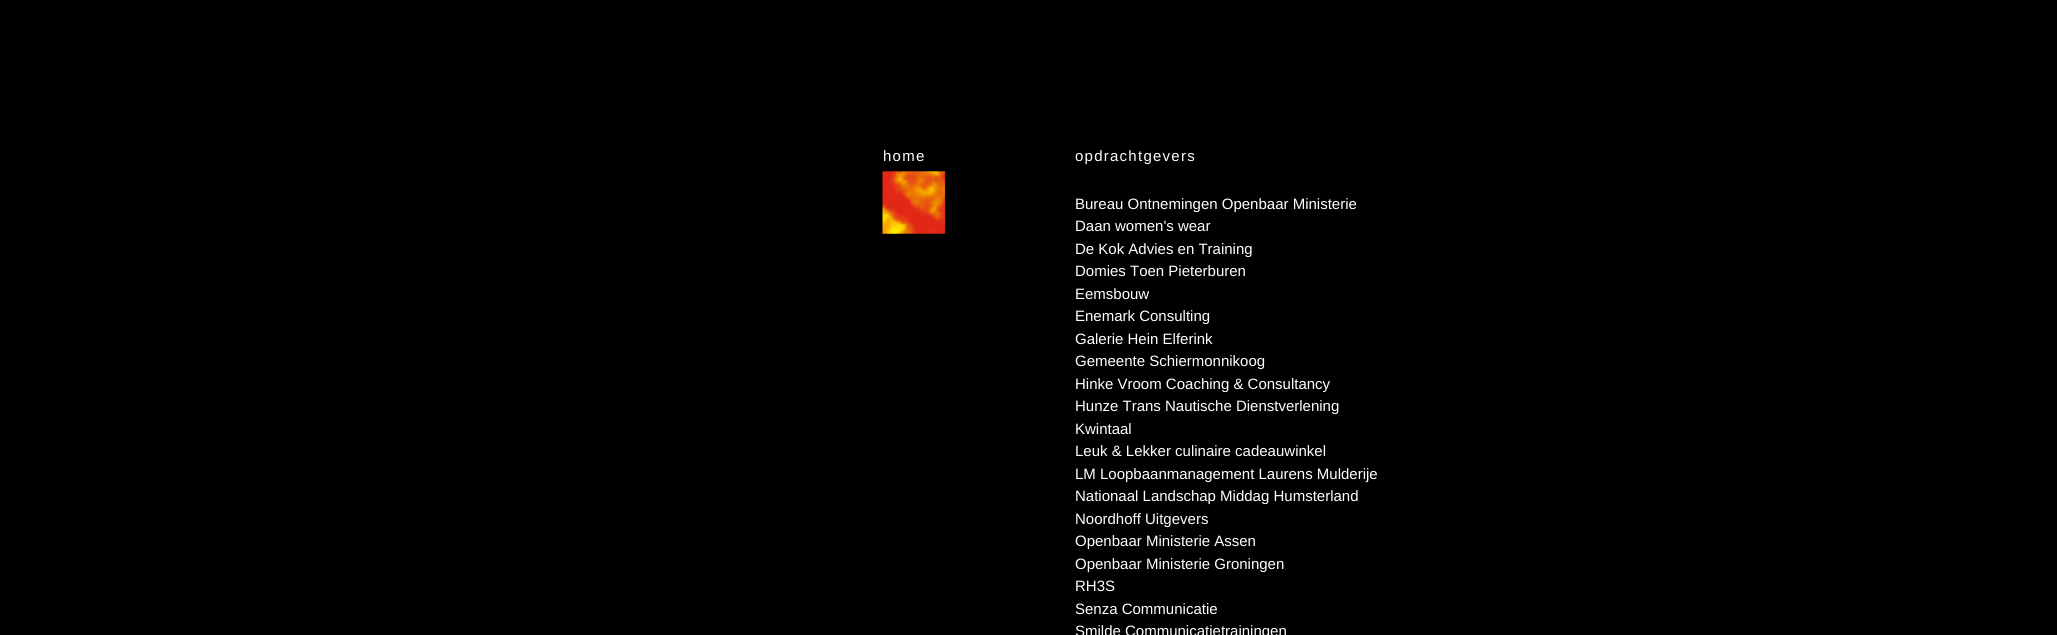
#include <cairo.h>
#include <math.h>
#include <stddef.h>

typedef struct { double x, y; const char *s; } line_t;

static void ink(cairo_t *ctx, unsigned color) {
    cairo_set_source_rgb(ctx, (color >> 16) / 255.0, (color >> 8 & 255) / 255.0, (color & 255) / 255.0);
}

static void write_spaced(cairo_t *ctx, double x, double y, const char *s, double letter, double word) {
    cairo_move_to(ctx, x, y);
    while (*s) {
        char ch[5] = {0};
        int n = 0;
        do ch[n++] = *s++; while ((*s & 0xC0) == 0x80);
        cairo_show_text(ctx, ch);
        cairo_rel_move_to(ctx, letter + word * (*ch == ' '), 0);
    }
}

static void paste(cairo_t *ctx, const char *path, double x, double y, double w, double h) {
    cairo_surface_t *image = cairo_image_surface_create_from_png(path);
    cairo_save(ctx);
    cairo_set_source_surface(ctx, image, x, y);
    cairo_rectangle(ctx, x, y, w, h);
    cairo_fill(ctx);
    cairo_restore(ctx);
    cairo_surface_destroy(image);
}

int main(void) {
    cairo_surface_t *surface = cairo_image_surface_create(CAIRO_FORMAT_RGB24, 2057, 635);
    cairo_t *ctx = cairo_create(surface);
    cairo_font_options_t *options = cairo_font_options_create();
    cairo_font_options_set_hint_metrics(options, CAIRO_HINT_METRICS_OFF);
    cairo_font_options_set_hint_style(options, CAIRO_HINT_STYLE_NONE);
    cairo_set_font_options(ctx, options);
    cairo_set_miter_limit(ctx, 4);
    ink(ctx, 0x000000);
    cairo_paint(ctx);
    cairo_select_font_face(ctx, "Liberation Sans", CAIRO_FONT_SLANT_NORMAL, CAIRO_FONT_WEIGHT_NORMAL);
    cairo_set_font_size(ctx, 15);
    ink(ctx, 0xFFFFFF);
    write_spaced(ctx, 883, 161, "home", 1.25, 0);
    write_spaced(ctx, 1075, 161, "opdrachtgevers", 1.25, 0);
    {
        static const line_t items[] = {
            {1075, 209, "Bureau Ontnemingen Openbaar Ministerie"},
            {1075, 231, "Daan women's wear"},
            {1075, 254, "De Kok Advies en Training"},
            {1075, 276, "Domies Toen Pieterburen"},
            {1075, 299, "Eemsbouw"},
            {1075, 321, "Enemark Consulting"},
            {1075, 344, "Galerie Hein Elferink"},
            {1075, 366, "Gemeente Schiermonnikoog"},
            {1075, 389, "Hinke Vroom Coaching & Consultancy"},
            {1075, 411, "Hunze Trans Nautische Dienstverlening"},
            {1075, 434, "Kwintaal"},
            {1075, 456, "Leuk & Lekker culinaire cadeauwinkel"},
            {1075, 479, "LM Loopbaanmanagement Laurens Mulderije"},
            {1075, 501, "Nationaal Landschap Middag Humsterland"},
            {1075, 524, "Noordhoff Uitgevers"},
            {1075, 546, "Openbaar Ministerie Assen"},
            {1075, 569, "Openbaar Ministerie Groningen"},
            {1075, 591, "RH3S"},
            {1075, 614, "Senza Communicatie"},
            {1075, 636, "Smilde Communicatietrainingen"},
        };
        for (size_t i = 0; i < sizeof items / sizeof *items; i++) {
            cairo_move_to(ctx, items[i].x, items[i].y);
            cairo_show_text(ctx, items[i].s);
        }
    }
    paste(ctx, "media/1.png", 882, 171, 183, 446);
    cairo_surface_write_to_png(surface, "image.png");
    cairo_font_options_destroy(options);
    cairo_destroy(ctx);
    cairo_surface_destroy(surface);
    return 0;
}
